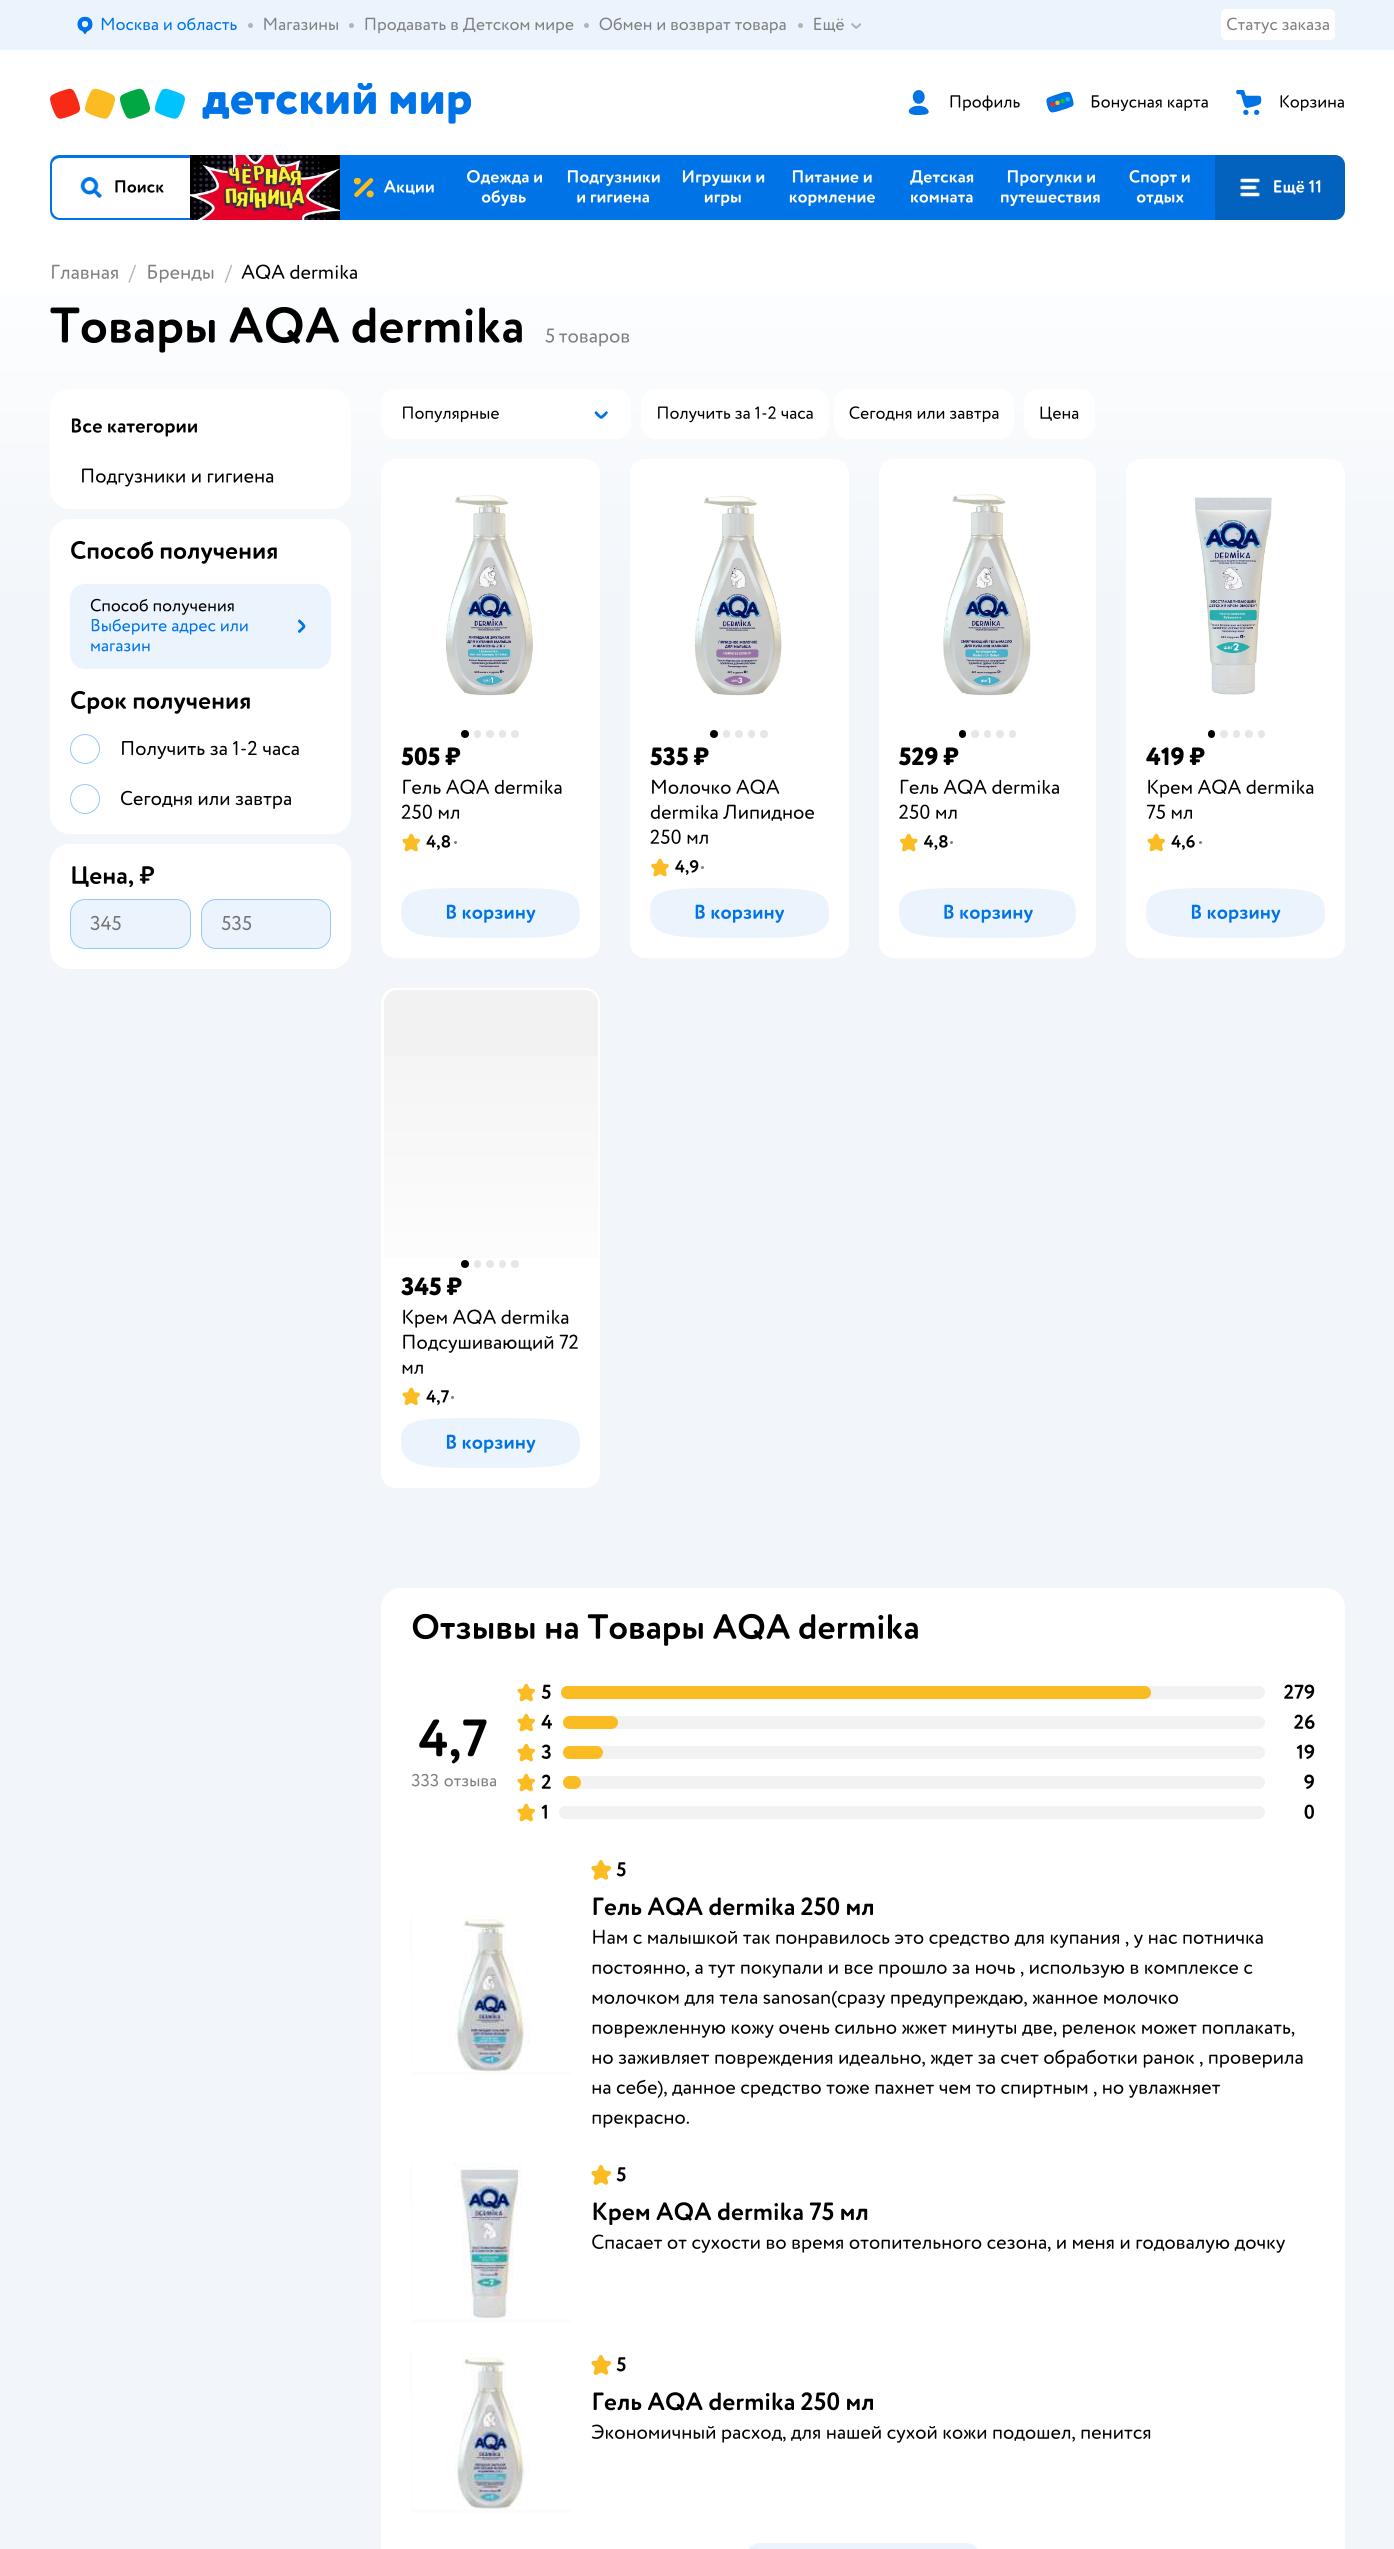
#include <cairo.h>
#include <math.h>
#include <stddef.h>


static void ink(cairo_t *ctx, unsigned color) {
    cairo_set_source_rgb(ctx, (color >> 16) / 255.0, (color >> 8 & 255) / 255.0, (color & 255) / 255.0);
}

static void round_path(cairo_t *ctx, double x, double y, double w, double h, double r) {
    cairo_new_sub_path(ctx);
    cairo_arc(ctx, x + w - r, y + h - r, r, 0, M_PI / 2);
    cairo_arc(ctx, x + r, y + h - r, r, M_PI / 2, M_PI);
    cairo_arc(ctx, x + r, y + r, r, M_PI, 1.5 * M_PI);
    cairo_arc(ctx, x + w - r, y + r, r, 1.5 * M_PI, 2 * M_PI);
    cairo_close_path(ctx);
}

static void paste(cairo_t *ctx, const char *path, double x, double y, double w, double h) {
    cairo_surface_t *image = cairo_image_surface_create_from_png(path);
    cairo_save(ctx);
    cairo_set_source_surface(ctx, image, x, y);
    cairo_rectangle(ctx, x, y, w, h);
    cairo_fill(ctx);
    cairo_restore(ctx);
    cairo_surface_destroy(image);
}

int main(void) {
    cairo_surface_t *surface = cairo_image_surface_create(CAIRO_FORMAT_RGB24, 1394, 2549);
    cairo_t *ctx = cairo_create(surface);
    cairo_font_options_t *options = cairo_font_options_create();
    cairo_font_options_set_hint_metrics(options, CAIRO_HINT_METRICS_OFF);
    cairo_font_options_set_hint_style(options, CAIRO_HINT_STYLE_NONE);
    cairo_set_font_options(ctx, options);
    cairo_set_miter_limit(ctx, 4);
    cairo_pattern_t *gradient;
    ink(ctx, 0xFFFFFF);
    cairo_paint(ctx);
    ink(ctx, 0xEBF4FD);
    cairo_rectangle(ctx, 0, 0, 1394, 50);
    cairo_fill(ctx);
    paste(ctx, "media/1.png", 77, 16, 16, 19);
    paste(ctx, "media/2.png", 101, 17, 136, 14);
    ink(ctx, 0xB3B3B3);
    cairo_arc(ctx, 250.5, 25.5, 2.5, 0, 2 * M_PI);
    cairo_fill(ctx);
    paste(ctx, "media/3.png", 264, 17, 74, 14);
    cairo_arc(ctx, 351.5, 25.5, 2.5, 0, 2 * M_PI);
    cairo_fill(ctx);
    paste(ctx, "media/4.png", 365, 17, 209, 17);
    cairo_arc(ctx, 586.5, 25.5, 2.5, 0, 2 * M_PI);
    cairo_fill(ctx);
    paste(ctx, "media/5.png", 599, 17, 187, 17);
    cairo_arc(ctx, 800.5, 25.5, 2.5, 0, 2 * M_PI);
    cairo_fill(ctx);
    paste(ctx, "media/6.png", 814, 17, 30, 15);
    paste(ctx, "media/7.png", 851, 23, 11, 6);
    ink(ctx, 0xFFFFFF);
    round_path(ctx, 1221, 9, 114, 31, 5);
    cairo_fill(ctx);
    paste(ctx, "media/8.png", 1227, 17, 102, 17);
    paste(ctx, "media/9.png", 50, 83, 421, 41);
    paste(ctx, "media/10.png", 908, 90, 21, 25);
    paste(ctx, "media/11.png", 950, 95, 70, 16);
    paste(ctx, "media/12.png", 1046, 91, 28, 22);
    paste(ctx, "media/13.png", 1091, 95, 117, 16);
    paste(ctx, "media/14.png", 1236, 90, 26, 25);
    paste(ctx, "media/15.png", 1280, 95, 64, 16);
    ink(ctx, 0x0073E6);
    cairo_set_fill_rule(ctx, CAIRO_FILL_RULE_EVEN_ODD);
    cairo_new_path(ctx);
    cairo_move_to(ctx, 60, 155);
    cairo_line_to(ctx, 190, 155);
    cairo_line_to(ctx, 190, 220);
    cairo_line_to(ctx, 60, 220);
    cairo_curve_to(ctx, 54, 220, 50, 216, 50, 210);
    cairo_line_to(ctx, 50, 165);
    cairo_curve_to(ctx, 50, 159, 54, 155, 60, 155);
    cairo_close_path(ctx);
    cairo_move_to(ctx, 60, 158);
    cairo_line_to(ctx, 190, 158);
    cairo_line_to(ctx, 190, 218);
    cairo_line_to(ctx, 60, 218);
    cairo_curve_to(ctx, 56, 218, 52, 214, 52, 210);
    cairo_line_to(ctx, 52, 165);
    cairo_curve_to(ctx, 52, 161, 56, 158, 60, 158);
    cairo_close_path(ctx);
    cairo_fill(ctx);
    paste(ctx, "media/16.png", 80, 177, 22, 21);
    paste(ctx, "media/17.png", 115, 180, 49, 13);
    paste(ctx, "media/18.png", 190, 155, 150, 65);
    cairo_rectangle(ctx, 340, 155, 875, 65);
    cairo_fill(ctx);
    paste(ctx, "media/19.png", 354, 178, 20, 20);
    paste(ctx, "media/20.png", 384, 180, 50, 15);
    ink(ctx, 0x0462BF);
    cairo_new_path(ctx);
    cairo_move_to(ctx, 1215, 155);
    cairo_line_to(ctx, 1335, 155);
    cairo_curve_to(ctx, 1340.5, 155, 1345, 159.5, 1345, 165);
    cairo_line_to(ctx, 1345, 210);
    cairo_curve_to(ctx, 1345, 215.5, 1340.5, 220, 1335, 220);
    cairo_line_to(ctx, 1215, 220);
    cairo_close_path(ctx);
    cairo_fill(ctx);
    paste(ctx, "media/21.png", 1240, 178, 20, 19);
    paste(ctx, "media/22.png", 1274, 180, 47, 15);
    paste(ctx, "media/23.png", 467, 170, 75, 15);
    paste(ctx, "media/24.png", 481, 190, 45, 16);
    paste(ctx, "media/25.png", 567, 170, 93, 16);
    paste(ctx, "media/26.png", 577, 194, 72, 9);
    paste(ctx, "media/27.png", 682, 170, 83, 16);
    paste(ctx, "media/28.png", 704, 194, 37, 12);
    paste(ctx, "media/29.png", 792, 170, 80, 13);
    paste(ctx, "media/30.png", 789, 194, 86, 12);
    paste(ctx, "media/31.png", 910, 170, 64, 15);
    paste(ctx, "media/32.png", 911, 194, 62, 9);
    paste(ctx, "media/33.png", 1007, 170, 88, 16);
    paste(ctx, "media/34.png", 1001, 194, 99, 12);
    paste(ctx, "media/35.png", 1129, 170, 61, 16);
    paste(ctx, "media/36.png", 1136, 194, 48, 11);
    gradient = cairo_pattern_create_linear(697, 220, 698, 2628);
    cairo_pattern_add_color_stop_rgba(gradient, 0, 1, 1, 1, 1);
    cairo_pattern_add_color_stop_rgba(gradient, 0.16, 0.949, 0.965, 0.98, 1);
    cairo_set_source(ctx, gradient);
    cairo_pattern_destroy(gradient);
    cairo_rectangle(ctx, 0, 294, 1394, 2255);
    cairo_fill(ctx);
    paste(ctx, "media/37.png", 52, 264, 66, 15);
    paste(ctx, "media/38.png", 128, 264, 8, 19);
    paste(ctx, "media/39.png", 148, 264, 66, 19);
    paste(ctx, "media/40.png", 224, 264, 9, 19);
    paste(ctx, "media/41.png", 241, 264, 116, 16);
    paste(ctx, "media/42.png", 50, 306, 472, 47);
    paste(ctx, "media/43.png", 545, 328, 9, 15);
    paste(ctx, "media/44.png", 559, 333, 71, 14);
    ink(ctx, 0xFFFFFF);
    round_path(ctx, 50, 389, 301, 120, 20);
    cairo_fill(ctx);
    paste(ctx, "media/45.png", 71, 418, 126, 19);
    paste(ctx, "media/46.png", 82, 468, 192, 19);
    round_path(ctx, 50, 519, 301, 315, 20);
    cairo_fill(ctx);
    paste(ctx, "media/47.png", 71, 541, 206, 23);
    ink(ctx, 0xEBF4FD);
    round_path(ctx, 70, 584, 261, 85, 15);
    cairo_fill(ctx);
    paste(ctx, "media/48.png", 90, 598, 144, 17);
    paste(ctx, "media/49.png", 91, 618, 157, 17);
    paste(ctx, "media/50.png", 91, 643, 59, 9);
    paste(ctx, "media/51.png", 297, 619, 9, 14);
    paste(ctx, "media/52.png", 71, 691, 179, 23);
    cairo_arc(ctx, 85, 749, 14.5, 0, 2 * M_PI);
    ink(ctx, 0x99C7F5);
    cairo_set_line_width(ctx, 1);
    cairo_stroke(ctx);
    paste(ctx, "media/53.png", 122, 740, 177, 19);
    cairo_arc(ctx, 85, 799, 14.5, 0, 2 * M_PI);
    cairo_stroke(ctx);
    paste(ctx, "media/54.png", 121, 790, 170, 19);
    ink(ctx, 0xFFFFFF);
    round_path(ctx, 50, 844, 301, 125, 20);
    cairo_fill(ctx);
    paste(ctx, "media/55.png", 72, 866, 83, 22);
    ink(ctx, 0xEBF4FD);
    round_path(ctx, 70.5, 899.5, 120, 49, 14.5);
    cairo_fill_preserve(ctx);
    ink(ctx, 0x99C7F5);
    cairo_stroke(ctx);
    paste(ctx, "media/56.png", 90, 915, 31, 16);
    ink(ctx, 0xEBF4FD);
    round_path(ctx, 201.5, 899.5, 129, 49, 14.5);
    cairo_fill_preserve(ctx);
    ink(ctx, 0x99C7F5);
    cairo_stroke(ctx);
    paste(ctx, "media/57.png", 221, 915, 30, 16);
    ink(ctx, 0xFFFFFF);
    round_path(ctx, 381, 389, 250, 50, 15);
    cairo_fill(ctx);
    paste(ctx, "media/58.png", 403, 406, 96, 17);
    paste(ctx, "media/59.png", 594, 411, 14, 8);
    round_path(ctx, 641, 389, 188, 50, 15);
    cairo_fill(ctx);
    paste(ctx, "media/60.png", 658, 406, 155, 17);
    round_path(ctx, 834, 389, 180, 50, 15);
    cairo_fill(ctx);
    paste(ctx, "media/61.png", 849, 406, 150, 17);
    round_path(ctx, 1024, 389, 71, 50, 15);
    cairo_fill(ctx);
    paste(ctx, "media/62.png", 1040, 406, 39, 15);
    round_path(ctx, 381, 459, 219, 499, 15);
    cairo_fill(ctx);
    paste(ctx, "media/63.png", 445, 494, 88, 203);
    ink(ctx, 0x000000);
    cairo_arc(ctx, 465, 734, 4, 0, 2 * M_PI);
    cairo_fill(ctx);
    ink(ctx, 0xE6E6E6);
    round_path(ctx, 474, 730, 7, 8, 3.5);
    cairo_fill(ctx);
    cairo_arc(ctx, 490, 734, 4, 0, 2 * M_PI);
    cairo_fill(ctx);
    round_path(ctx, 499, 730, 7, 8, 3.5);
    cairo_fill(ctx);
    cairo_arc(ctx, 515, 734, 4, 0, 2 * M_PI);
    cairo_fill(ctx);
    paste(ctx, "media/64.png", 401, 747, 60, 19);
    paste(ctx, "media/65.png", 403, 779, 159, 16);
    paste(ctx, "media/66.png", 401, 804, 59, 15);
    paste(ctx, "media/67.png", 402, 833, 18, 19);
    paste(ctx, "media/68.png", 426, 835, 25, 15);
    ink(ctx, 0x808080);
    cairo_arc(ctx, 455.5, 842.5, 1.5, 0, 2 * M_PI);
    cairo_fill(ctx);
    ink(ctx, 0xEBF4FD);
    cairo_new_path(ctx);
    cairo_move_to(ctx, 474, 888);
    cairo_curve_to(ctx, 420, 888, 401, 888, 401, 911);
    cairo_curve_to(ctx, 401, 935, 417, 938, 474, 938);
    cairo_close_path(ctx);
    cairo_fill(ctx);
    cairo_rectangle(ctx, 474, 888, 34, 50);
    cairo_fill(ctx);
    cairo_new_path(ctx);
    cairo_move_to(ctx, 508, 888);
    cairo_line_to(ctx, 508, 938);
    cairo_curve_to(ctx, 558, 938, 580, 936, 580, 914);
    cairo_curve_to(ctx, 580, 891, 569, 888, 508, 888);
    cairo_close_path(ctx);
    cairo_fill(ctx);
    paste(ctx, "media/69.png", 446, 904, 90, 19);
    ink(ctx, 0xFFFFFF);
    round_path(ctx, 630, 459, 219, 499, 15);
    cairo_fill(ctx);
    paste(ctx, "media/70.png", 694, 495, 88, 202);
    ink(ctx, 0x000000);
    cairo_arc(ctx, 714, 734, 4, 0, 2 * M_PI);
    cairo_fill(ctx);
    ink(ctx, 0xE6E6E6);
    round_path(ctx, 723, 730, 7, 8, 3.5);
    cairo_fill(ctx);
    cairo_arc(ctx, 739, 734, 4, 0, 2 * M_PI);
    cairo_fill(ctx);
    round_path(ctx, 748, 730, 7, 8, 3.5);
    cairo_fill(ctx);
    cairo_arc(ctx, 764, 734, 4, 0, 2 * M_PI);
    cairo_fill(ctx);
    paste(ctx, "media/71.png", 650, 747, 59, 19);
    paste(ctx, "media/72.png", 652, 779, 128, 16);
    paste(ctx, "media/73.png", 650, 804, 164, 17);
    paste(ctx, "media/74.png", 650, 829, 58, 15);
    paste(ctx, "media/75.png", 651, 858, 18, 19);
    paste(ctx, "media/76.png", 675, 860, 24, 15);
    ink(ctx, 0x808080);
    cairo_arc(ctx, 702.5, 867.5, 1.5, 0, 2 * M_PI);
    cairo_fill(ctx);
    ink(ctx, 0xEBF4FD);
    cairo_new_path(ctx);
    cairo_move_to(ctx, 722, 888);
    cairo_curve_to(ctx, 669, 888, 650, 888, 650, 911);
    cairo_curve_to(ctx, 650, 935, 666, 938, 722, 938);
    cairo_close_path(ctx);
    cairo_fill(ctx);
    cairo_rectangle(ctx, 722, 888, 34, 50);
    cairo_fill(ctx);
    cairo_new_path(ctx);
    cairo_move_to(ctx, 756, 888);
    cairo_line_to(ctx, 756, 938);
    cairo_curve_to(ctx, 807, 938, 829, 936, 829, 914);
    cairo_curve_to(ctx, 829, 891, 818, 888, 756, 888);
    cairo_close_path(ctx);
    cairo_fill(ctx);
    paste(ctx, "media/77.png", 695, 904, 90, 19);
    ink(ctx, 0xFFFFFF);
    round_path(ctx, 879, 459, 217, 499, 15);
    cairo_fill(ctx);
    paste(ctx, "media/78.png", 943, 493, 88, 204);
    ink(ctx, 0x000000);
    round_path(ctx, 959, 730, 7, 8, 3.5);
    cairo_fill(ctx);
    ink(ctx, 0xE6E6E6);
    cairo_arc(ctx, 975, 734, 4, 0, 2 * M_PI);
    cairo_fill(ctx);
    round_path(ctx, 984, 730, 7, 8, 3.5);
    cairo_fill(ctx);
    cairo_arc(ctx, 1000, 734, 4, 0, 2 * M_PI);
    cairo_fill(ctx);
    round_path(ctx, 1009, 730, 7, 8, 3.5);
    cairo_fill(ctx);
    paste(ctx, "media/79.png", 899, 747, 60, 19);
    paste(ctx, "media/80.png", 900, 779, 159, 16);
    paste(ctx, "media/81.png", 899, 804, 58, 15);
    paste(ctx, "media/82.png", 900, 833, 18, 19);
    paste(ctx, "media/83.png", 923, 835, 25, 15);
    ink(ctx, 0x808080);
    cairo_arc(ctx, 951.5, 842.5, 1.5, 0, 2 * M_PI);
    cairo_fill(ctx);
    ink(ctx, 0xEBF4FD);
    cairo_new_path(ctx);
    cairo_move_to(ctx, 971, 888);
    cairo_curve_to(ctx, 917, 888, 899, 888, 899, 911);
    cairo_curve_to(ctx, 899, 935, 914, 938, 971, 938);
    cairo_close_path(ctx);
    cairo_fill(ctx);
    cairo_rectangle(ctx, 971, 888, 33, 50);
    cairo_fill(ctx);
    cairo_new_path(ctx);
    cairo_move_to(ctx, 1004, 888);
    cairo_line_to(ctx, 1004, 938);
    cairo_curve_to(ctx, 1054, 938, 1076, 936, 1076, 914);
    cairo_curve_to(ctx, 1076, 891, 1066, 888, 1004, 888);
    cairo_close_path(ctx);
    cairo_fill(ctx);
    paste(ctx, "media/84.png", 944, 904, 89, 19);
    ink(ctx, 0xFFFFFF);
    round_path(ctx, 1126, 459, 219, 499, 15);
    cairo_fill(ctx);
    paste(ctx, "media/85.png", 1194, 497, 78, 198);
    ink(ctx, 0x000000);
    round_path(ctx, 1208, 730, 7, 8, 3.5);
    cairo_fill(ctx);
    ink(ctx, 0xE6E6E6);
    cairo_arc(ctx, 1224, 734, 4, 0, 2 * M_PI);
    cairo_fill(ctx);
    round_path(ctx, 1233, 730, 7, 8, 3.5);
    cairo_fill(ctx);
    cairo_arc(ctx, 1249, 734, 4, 0, 2 * M_PI);
    cairo_fill(ctx);
    round_path(ctx, 1258, 730, 7, 8, 3.5);
    cairo_fill(ctx);
    paste(ctx, "media/86.png", 1146, 747, 59, 19);
    paste(ctx, "media/87.png", 1148, 779, 166, 19);
    paste(ctx, "media/88.png", 1146, 804, 46, 15);
    paste(ctx, "media/67.png", 1147, 833, 18, 19);
    paste(ctx, "media/89.png", 1171, 835, 24, 15);
    ink(ctx, 0x808080);
    cairo_arc(ctx, 1200.5, 842.5, 1.5, 0, 2 * M_PI);
    cairo_fill(ctx);
    ink(ctx, 0xEBF4FD);
    cairo_new_path(ctx);
    cairo_move_to(ctx, 1219, 888);
    cairo_curve_to(ctx, 1165, 888, 1146, 888, 1146, 911);
    cairo_curve_to(ctx, 1146, 935, 1162, 938, 1219, 938);
    cairo_close_path(ctx);
    cairo_fill(ctx);
    cairo_rectangle(ctx, 1219, 888, 34, 50);
    cairo_fill(ctx);
    cairo_save(ctx);
    cairo_set_fill_rule(ctx, CAIRO_FILL_RULE_WINDING);
    cairo_rectangle(ctx, 1253, 888, 72, 50);
    cairo_clip(ctx);
    cairo_set_fill_rule(ctx, CAIRO_FILL_RULE_EVEN_ODD);
    cairo_new_path(ctx);
    cairo_move_to(ctx, 1252, 888);
    cairo_line_to(ctx, 1252, 938);
    cairo_curve_to(ctx, 1303, 938, 1325, 936, 1325, 914);
    cairo_curve_to(ctx, 1325, 891, 1314, 888, 1252, 888);
    cairo_close_path(ctx);
    cairo_fill(ctx);
    cairo_restore(ctx);
    paste(ctx, "media/69.png", 1191, 904, 90, 19);
    ink(ctx, 0xFFFFFF);
    round_path(ctx, 381, 988, 219, 500, 15);
    cairo_fill(ctx);
    ink(ctx, 0xF2F2F2);
    cairo_new_path(ctx);
    cairo_move_to(ctx, 397, 990);
    cairo_line_to(ctx, 585, 990);
    cairo_curve_to(ctx, 592, 990, 598, 996, 598, 1003);
    cairo_line_to(ctx, 598, 1258);
    cairo_line_to(ctx, 384, 1258);
    cairo_line_to(ctx, 384, 1003);
    cairo_curve_to(ctx, 384, 996, 390, 990, 397, 990);
    cairo_close_path(ctx);
    cairo_fill(ctx);
    gradient = cairo_pattern_create_linear(598, 990, 598, 1524);
    cairo_pattern_add_color_stop_rgba(gradient, 0, 1, 1, 1, 0);
    cairo_pattern_add_color_stop_rgba(gradient, 0.5, 1, 1, 1, 0.8);
    cairo_pattern_add_color_stop_rgba(gradient, 1, 1, 1, 1, 0);
    cairo_set_source(ctx, gradient);
    cairo_pattern_destroy(gradient);
    cairo_rectangle(ctx, 384, 1056, 214, 202);
    cairo_fill(ctx);
    ink(ctx, 0x000000);
    cairo_arc(ctx, 465, 1264, 4, 0, 2 * M_PI);
    cairo_fill(ctx);
    ink(ctx, 0xE6E6E6);
    round_path(ctx, 474, 1260, 7, 8, 3.5);
    cairo_fill(ctx);
    cairo_arc(ctx, 490, 1264, 4, 0, 2 * M_PI);
    cairo_fill(ctx);
    round_path(ctx, 499, 1260, 7, 8, 3.5);
    cairo_fill(ctx);
    cairo_arc(ctx, 515, 1264, 4, 0, 2 * M_PI);
    cairo_fill(ctx);
    paste(ctx, "media/90.png", 401, 1277, 61, 19);
    paste(ctx, "media/87.png", 403, 1309, 166, 19);
    paste(ctx, "media/91.png", 403, 1334, 175, 19);
    paste(ctx, "media/92.png", 402, 1364, 21, 10);
    paste(ctx, "media/93.png", 402, 1387, 18, 18);
    paste(ctx, "media/94.png", 426, 1390, 23, 15);
    ink(ctx, 0x808080);
    cairo_arc(ctx, 452.5, 1397.5, 1.5, 0, 2 * M_PI);
    cairo_fill(ctx);
    ink(ctx, 0xEBF4FD);
    cairo_new_path(ctx);
    cairo_move_to(ctx, 474, 1418);
    cairo_curve_to(ctx, 420, 1418, 401, 1418, 401, 1441);
    cairo_curve_to(ctx, 401, 1465, 417, 1468, 474, 1468);
    cairo_close_path(ctx);
    cairo_fill(ctx);
    cairo_rectangle(ctx, 474, 1418, 34, 50);
    cairo_fill(ctx);
    cairo_new_path(ctx);
    cairo_move_to(ctx, 508, 1418);
    cairo_line_to(ctx, 508, 1468);
    cairo_curve_to(ctx, 558, 1468, 580, 1466, 580, 1444);
    cairo_curve_to(ctx, 580, 1421, 569, 1418, 508, 1418);
    cairo_close_path(ctx);
    cairo_fill(ctx);
    paste(ctx, "media/69.png", 446, 1434, 90, 19);
    ink(ctx, 0xFFFFFF);
    round_path(ctx, 381, 1588, 964, 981, 20);
    cairo_fill(ctx);
    paste(ctx, "media/95.png", 412, 1613, 166, 27);
    paste(ctx, "media/96.png", 587, 1613, 331, 33);
    paste(ctx, "media/97.png", 419, 1719, 68, 45);
    paste(ctx, "media/98.png", 411, 1773, 27, 14);
    paste(ctx, "media/99.png", 444, 1778, 52, 9);
    paste(ctx, "media/67.png", 517, 1683, 18, 19);
    paste(ctx, "media/100.png", 541, 1684, 10, 15);
    ink(ctx, 0xF2F2F2);
    round_path(ctx, 561, 1686, 704, 13, 6.5);
    cairo_fill(ctx);
    ink(ctx, 0xFABC22);
    round_path(ctx, 561, 1686, 590, 13, 6.5);
    cairo_fill(ctx);
    paste(ctx, "media/101.png", 1284, 1684, 31, 15);
    paste(ctx, "media/67.png", 517, 1713, 18, 19);
    paste(ctx, "media/102.png", 541, 1714, 11, 15);
    ink(ctx, 0xF2F2F2);
    round_path(ctx, 563, 1716, 702, 13, 6.5);
    cairo_fill(ctx);
    ink(ctx, 0xFABC22);
    round_path(ctx, 563, 1716, 55, 13, 6.5);
    cairo_fill(ctx);
    paste(ctx, "media/103.png", 1294, 1714, 21, 15);
    paste(ctx, "media/67.png", 517, 1743, 18, 19);
    paste(ctx, "media/104.png", 541, 1744, 10, 15);
    ink(ctx, 0xF2F2F2);
    round_path(ctx, 563, 1746, 702, 13, 6.5);
    cairo_fill(ctx);
    ink(ctx, 0xFABC22);
    round_path(ctx, 563, 1746, 40, 13, 6.5);
    cairo_fill(ctx);
    paste(ctx, "media/105.png", 1296, 1744, 19, 15);
    paste(ctx, "media/106.png", 517, 1773, 18, 19);
    paste(ctx, "media/107.png", 541, 1774, 10, 15);
    ink(ctx, 0xF2F2F2);
    round_path(ctx, 563, 1776, 702, 13, 6.5);
    cairo_fill(ctx);
    ink(ctx, 0xFABC22);
    round_path(ctx, 563, 1776, 18, 13, 6.5);
    cairo_fill(ctx);
    paste(ctx, "media/108.png", 1304, 1774, 10, 15);
    paste(ctx, "media/67.png", 517, 1803, 18, 19);
    paste(ctx, "media/109.png", 541, 1804, 6, 15);
    ink(ctx, 0xF2F2F2);
    round_path(ctx, 559, 1806, 706, 13, 6.5);
    cairo_fill(ctx);
    paste(ctx, "media/110.png", 1304, 1804, 10, 15);
    gradient = cairo_pattern_create_linear(571, 1915, 571, 2235);
    cairo_pattern_add_color_stop_rgba(gradient, 0, 0.949, 0.949, 0.949, 1);
    cairo_pattern_add_color_stop_rgba(gradient, 0.5, 0.988, 0.988, 0.988, 1);
    cairo_pattern_add_color_stop_rgba(gradient, 1, 0.949, 0.949, 0.949, 1);
    cairo_set_source(ctx, gradient);
    cairo_pattern_destroy(gradient);
    cairo_rectangle(ctx, 411, 1915, 160, 160);
    cairo_fill(ctx);
    paste(ctx, "media/111.png", 411, 1915, 160, 157);
    paste(ctx, "media/112.png", 591, 1860, 20, 20);
    paste(ctx, "media/113.png", 616, 1862, 10, 15);
    paste(ctx, "media/114.png", 593, 1897, 280, 19);
    paste(ctx, "media/115.png", 593, 1929, 670, 19);
    paste(ctx, "media/116.png", 592, 1964, 661, 14);
    paste(ctx, "media/117.png", 592, 1990, 587, 18);
    paste(ctx, "media/118.png", 592, 2024, 703, 14);
    paste(ctx, "media/119.png", 592, 2049, 711, 19);
    paste(ctx, "media/120.png", 592, 2079, 629, 19);
    paste(ctx, "media/121.png", 592, 2114, 97, 14);
    gradient = cairo_pattern_create_linear(571, 2163, 571, 2483);
    cairo_pattern_add_color_stop_rgba(gradient, 0, 0.949, 0.949, 0.949, 1);
    cairo_pattern_add_color_stop_rgba(gradient, 0.5, 0.988, 0.988, 0.988, 1);
    cairo_pattern_add_color_stop_rgba(gradient, 1, 0.949, 0.949, 0.949, 1);
    cairo_set_source(ctx, gradient);
    cairo_pattern_destroy(gradient);
    cairo_rectangle(ctx, 411, 2163, 160, 160);
    cairo_fill(ctx);
    paste(ctx, "media/122.png", 411, 2163, 160, 156);
    paste(ctx, "media/112.png", 591, 2165, 20, 20);
    paste(ctx, "media/113.png", 616, 2167, 10, 15);
    paste(ctx, "media/123.png", 593, 2202, 275, 23);
    paste(ctx, "media/124.png", 592, 2234, 693, 19);
    gradient = cairo_pattern_create_linear(571, 2353, 571, 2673);
    cairo_pattern_add_color_stop_rgba(gradient, 0, 0.949, 0.949, 0.949, 1);
    cairo_pattern_add_color_stop_rgba(gradient, 0.5, 0.988, 0.988, 0.988, 1);
    cairo_pattern_add_color_stop_rgba(gradient, 1, 0.949, 0.949, 0.949, 1);
    cairo_set_source(ctx, gradient);
    cairo_pattern_destroy(gradient);
    cairo_rectangle(ctx, 411, 2353, 160, 160);
    cairo_fill(ctx);
    paste(ctx, "media/125.png", 411, 2353, 160, 156);
    paste(ctx, "media/112.png", 591, 2355, 20, 20);
    paste(ctx, "media/113.png", 616, 2357, 10, 15);
    paste(ctx, "media/114.png", 593, 2392, 280, 19);
    paste(ctx, "media/126.png", 591, 2424, 560, 19);
    ink(ctx, 0xEBF4FD);
    round_path(ctx, 745, 2543, 236, 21, 15);
    cairo_fill(ctx);
    cairo_surface_write_to_png(surface, "image.png");
    cairo_font_options_destroy(options);
    cairo_destroy(ctx);
    cairo_surface_destroy(surface);
    return 0;
}
